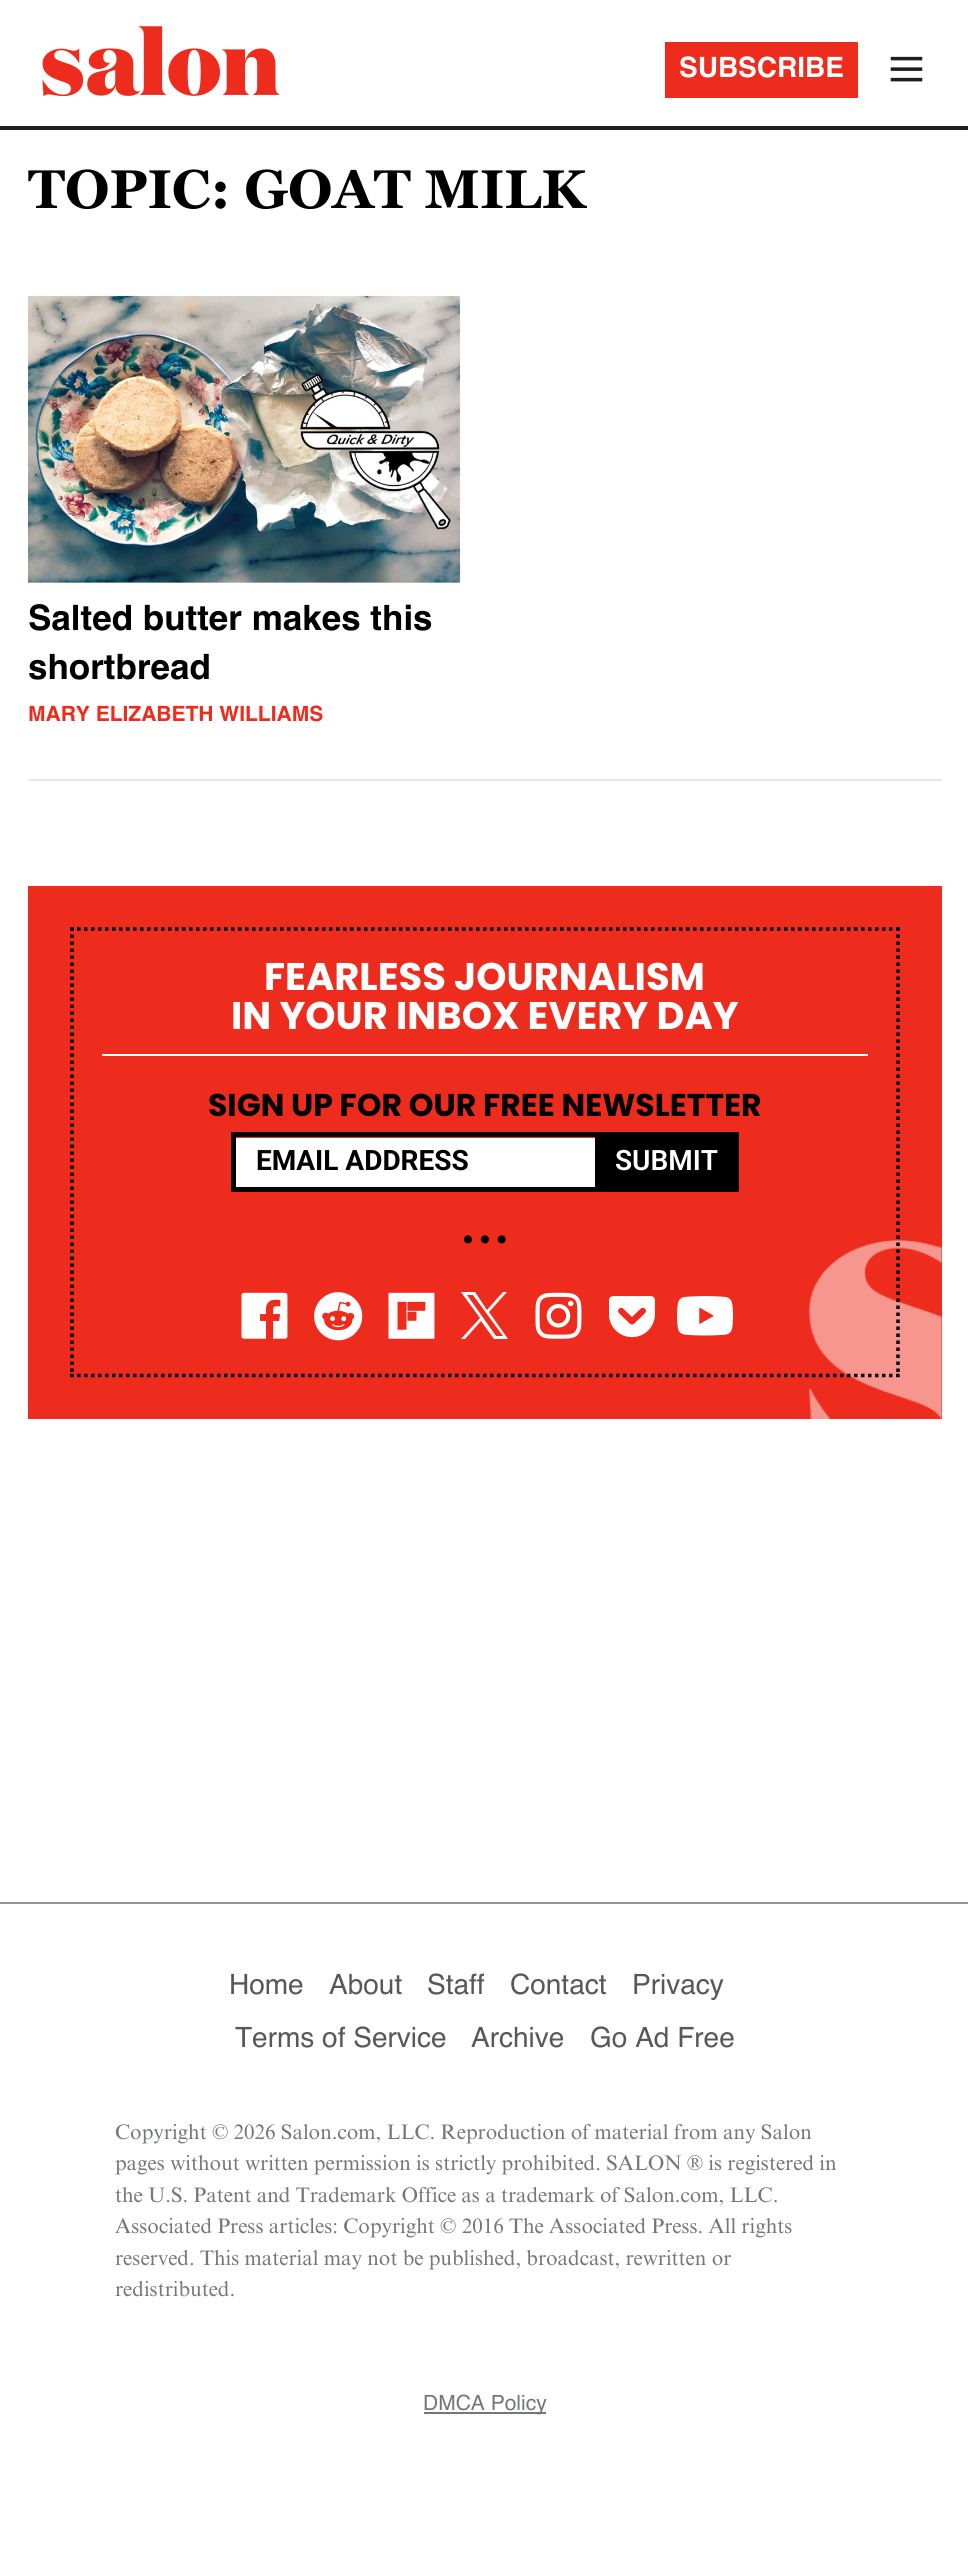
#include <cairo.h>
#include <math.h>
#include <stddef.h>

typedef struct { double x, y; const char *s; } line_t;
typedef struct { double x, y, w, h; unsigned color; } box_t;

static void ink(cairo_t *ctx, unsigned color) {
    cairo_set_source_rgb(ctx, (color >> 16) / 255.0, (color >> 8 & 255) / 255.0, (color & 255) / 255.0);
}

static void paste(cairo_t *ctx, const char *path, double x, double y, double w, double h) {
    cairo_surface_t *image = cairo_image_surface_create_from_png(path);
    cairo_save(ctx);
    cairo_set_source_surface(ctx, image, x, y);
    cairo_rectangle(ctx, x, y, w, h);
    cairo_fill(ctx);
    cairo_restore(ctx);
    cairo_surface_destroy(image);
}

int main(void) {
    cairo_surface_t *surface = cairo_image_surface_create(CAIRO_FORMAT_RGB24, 968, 2563);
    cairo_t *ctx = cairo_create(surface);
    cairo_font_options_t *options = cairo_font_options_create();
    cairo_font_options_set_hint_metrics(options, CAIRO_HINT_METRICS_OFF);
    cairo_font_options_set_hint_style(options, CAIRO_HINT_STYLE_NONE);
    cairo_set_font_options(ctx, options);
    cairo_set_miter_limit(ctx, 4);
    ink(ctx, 0xFFFFFF);
    cairo_paint(ctx);
    ink(ctx, 0x1E1E1E);
    cairo_rectangle(ctx, 0, 126, 968, 4);
    cairo_fill(ctx);
    paste(ctx, "media/1.png", 42, 26, 238, 70);
    ink(ctx, 0xED2C1D);
    cairo_rectangle(ctx, 665, 42, 193, 56);
    cairo_fill(ctx);
    cairo_select_font_face(ctx, "Helvetica", CAIRO_FONT_SLANT_NORMAL, CAIRO_FONT_WEIGHT_BOLD);
    cairo_set_font_size(ctx, 28);
    ink(ctx, 0xFFFFFF);
    cairo_move_to(ctx, 679, 77);
    cairo_show_text(ctx, "SUBSCRIBE");
    paste(ctx, "media/2.png", 890, 56, 33, 26);
    cairo_select_font_face(ctx, "Georgia", CAIRO_FONT_SLANT_NORMAL, CAIRO_FONT_WEIGHT_BOLD);
    cairo_set_font_size(ctx, 54.25);
    ink(ctx, 0x000000);
    cairo_move_to(ctx, 28, 208);
    cairo_show_text(ctx, "TOPIC: GOAT MILK");
    ink(ctx, 0xE6E6E6);
    cairo_rectangle(ctx, 28, 582, 432, 1);
    cairo_fill(ctx);
    paste(ctx, "media/3.png", 28, 295, 433, 288);
    cairo_select_font_face(ctx, "Helvetica", CAIRO_FONT_SLANT_NORMAL, CAIRO_FONT_WEIGHT_BOLD);
    cairo_set_font_size(ctx, 35);
    ink(ctx, 0x000000);
    cairo_move_to(ctx, 28, 630);
    cairo_show_text(ctx, "Salted butter makes this");
    cairo_move_to(ctx, 28, 679);
    cairo_show_text(ctx, "shortbread");
    cairo_set_font_size(ctx, 21);
    ink(ctx, 0xED2C1D);
    cairo_move_to(ctx, 28, 721);
    cairo_show_text(ctx, "MARY ELIZABETH WILLIAMS");
    ink(ctx, 0xE5E7EB);
    cairo_rectangle(ctx, 28, 779, 914, 2);
    cairo_fill(ctx);
    ink(ctx, 0xEE2C1D);
    cairo_rectangle(ctx, 28, 886, 914, 533);
    cairo_fill(ctx);
    paste(ctx, "media/4.png", 809, 1240, 133, 179);
    cairo_new_path(ctx);
    cairo_move_to(ctx, 70, 929);
    cairo_line_to(ctx, 899.5, 929);
    ink(ctx, 0x000000);
    cairo_set_line_width(ctx, 3.5);
    cairo_set_dash(ctx, (double[]){3.5, 3.5}, 2, 0);
    cairo_stroke(ctx);
    cairo_new_path(ctx);
    cairo_move_to(ctx, 898, 927.5);
    cairo_line_to(ctx, 898, 1377);
    cairo_stroke(ctx);
    cairo_new_path(ctx);
    cairo_move_to(ctx, 70, 1375.5);
    cairo_line_to(ctx, 899.5, 1375.5);
    cairo_stroke(ctx);
    cairo_new_path(ctx);
    cairo_move_to(ctx, 72, 927.5);
    cairo_line_to(ctx, 72, 1377);
    cairo_stroke(ctx);
    ink(ctx, 0xFFFFFF);
    cairo_rectangle(ctx, 102, 1054, 766, 2);
    cairo_fill(ctx);
    cairo_select_font_face(ctx, "Poppins", CAIRO_FONT_SLANT_NORMAL, CAIRO_FONT_WEIGHT_BOLD);
    cairo_set_font_size(ctx, 38.5);
    cairo_move_to(ctx, 264, 990);
    cairo_show_text(ctx, "FEARLESS JOURNALISM");
    cairo_move_to(ctx, 231, 1029);
    cairo_show_text(ctx, "IN YOUR INBOX EVERY DAY");
    cairo_set_font_size(ctx, 31.5);
    ink(ctx, 0x000000);
    cairo_move_to(ctx, 208, 1116);
    cairo_show_text(ctx, "SIGN UP FOR OUR FREE NEWSLETTER");
    {
        static const box_t items[] = {
            {236, 1138, 359, 49, 0xFFFFFF},
            {231, 1132, 364, 5, 0x000000},
            {231, 1187, 364, 5, 0x000000},
            {231, 1132, 5, 60, 0x000000},
        };
        for (size_t i = 0; i < sizeof items / sizeof *items; i++) {
            ink(ctx, items[i].color);
            cairo_rectangle(ctx, items[i].x, items[i].y, items[i].w, items[i].h);
            cairo_fill(ctx);
        }
    }
    cairo_select_font_face(ctx, "Roboto", CAIRO_FONT_SLANT_NORMAL, CAIRO_FONT_WEIGHT_BOLD);
    cairo_set_font_size(ctx, 28);
    cairo_move_to(ctx, 256, 1170);
    cairo_show_text(ctx, "EMAIL ADDRESS");
    cairo_rectangle(ctx, 595, 1132, 144, 60);
    cairo_fill(ctx);
    cairo_select_font_face(ctx, "Roboto SemiBold", CAIRO_FONT_SLANT_NORMAL, CAIRO_FONT_WEIGHT_NORMAL);
    ink(ctx, 0xFFFFFF);
    cairo_move_to(ctx, 615, 1170);
    cairo_show_text(ctx, "SUBMIT");
    cairo_select_font_face(ctx, "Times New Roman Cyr", CAIRO_FONT_SLANT_NORMAL, CAIRO_FONT_WEIGHT_BOLD);
    ink(ctx, 0x000000);
    cairo_move_to(ctx, 463, 1249);
    cairo_show_text(ctx, "• • •");
    paste(ctx, "media/5.png", 241, 1292, 47, 47);
    paste(ctx, "media/6.png", 314, 1292, 49, 49);
    paste(ctx, "media/7.png", 388, 1292, 47, 47);
    ink(ctx, 0xFFFFFF);
    cairo_new_path(ctx);
    cairo_move_to(ctx, 489, 1312);
    cairo_line_to(ctx, 507, 1292);
    cairo_line_to(ctx, 503, 1292);
    cairo_line_to(ctx, 487, 1310);
    cairo_line_to(ctx, 475, 1292);
    cairo_line_to(ctx, 461, 1292);
    cairo_line_to(ctx, 480, 1318);
    cairo_line_to(ctx, 461, 1339);
    cairo_line_to(ctx, 465, 1339);
    cairo_line_to(ctx, 481, 1321);
    cairo_line_to(ctx, 494, 1339);
    cairo_line_to(ctx, 508, 1339);
    cairo_close_path(ctx);
    cairo_move_to(ctx, 484, 1319);
    cairo_line_to(ctx, 467, 1295);
    cairo_line_to(ctx, 473, 1295);
    cairo_line_to(ctx, 503, 1336);
    cairo_line_to(ctx, 496, 1336);
    cairo_close_path(ctx);
    cairo_fill(ctx);
    paste(ctx, "media/8.png", 535, 1292, 47, 47);
    paste(ctx, "media/9.png", 609, 1296, 46, 42);
    paste(ctx, "media/10.png", 677, 1296, 57, 40);
    ink(ctx, 0x939597);
    cairo_rectangle(ctx, 0, 1902, 968, 2);
    cairo_fill(ctx);
    cairo_select_font_face(ctx, "Helvetica", CAIRO_FONT_SLANT_NORMAL, CAIRO_FONT_WEIGHT_NORMAL);
    ink(ctx, 0x58585B);
    {
        static const line_t items[] = {
            {229, 1994, "Home"},
            {329, 1994, "About"},
            {427, 1994, "Staff"},
            {510, 1994, "Contact"},
            {632, 1994, "Privacy"},
            {235, 2047, "Terms of Service"},
            {471, 2047, "Archive"},
            {590, 2047, "Go Ad Free"},
        };
        for (size_t i = 0; i < sizeof items / sizeof *items; i++) {
            cairo_move_to(ctx, items[i].x, items[i].y);
            cairo_show_text(ctx, items[i].s);
        }
    }
    cairo_select_font_face(ctx, "Times New Roman Cyr", CAIRO_FONT_SLANT_NORMAL, CAIRO_FONT_WEIGHT_NORMAL);
    cairo_set_font_size(ctx, 21);
    ink(ctx, 0x747677);
    {
        static const line_t items[] = {
            {115, 2139, "Copyright © 2026 Salon.com, LLC. Reproduction of material from any Salon"},
            {115, 2170, "pages without written permission is strictly prohibited. SALON ® is registered in"},
            {115, 2202, "the U.S. Patent and Trademark Office as a trademark of Salon.com, LLC."},
            {115, 2233, "Associated Press articles: Copyright © 2016 The Associated Press. All rights"},
            {115, 2265, "reserved. This material may not be published, broadcast, rewritten or"},
            {115, 2296, "redistributed."},
        };
        for (size_t i = 0; i < sizeof items / sizeof *items; i++) {
            cairo_move_to(ctx, items[i].x, items[i].y);
            cairo_show_text(ctx, items[i].s);
        }
    }
    cairo_rectangle(ctx, 424, 2412, 122, 2);
    cairo_fill(ctx);
    cairo_select_font_face(ctx, "Helvetica", CAIRO_FONT_SLANT_NORMAL, CAIRO_FONT_WEIGHT_NORMAL);
    cairo_move_to(ctx, 423, 2410);
    cairo_show_text(ctx, "DMCA Policy");
    cairo_surface_write_to_png(surface, "image.png");
    cairo_font_options_destroy(options);
    cairo_destroy(ctx);
    cairo_surface_destroy(surface);
    return 0;
}
